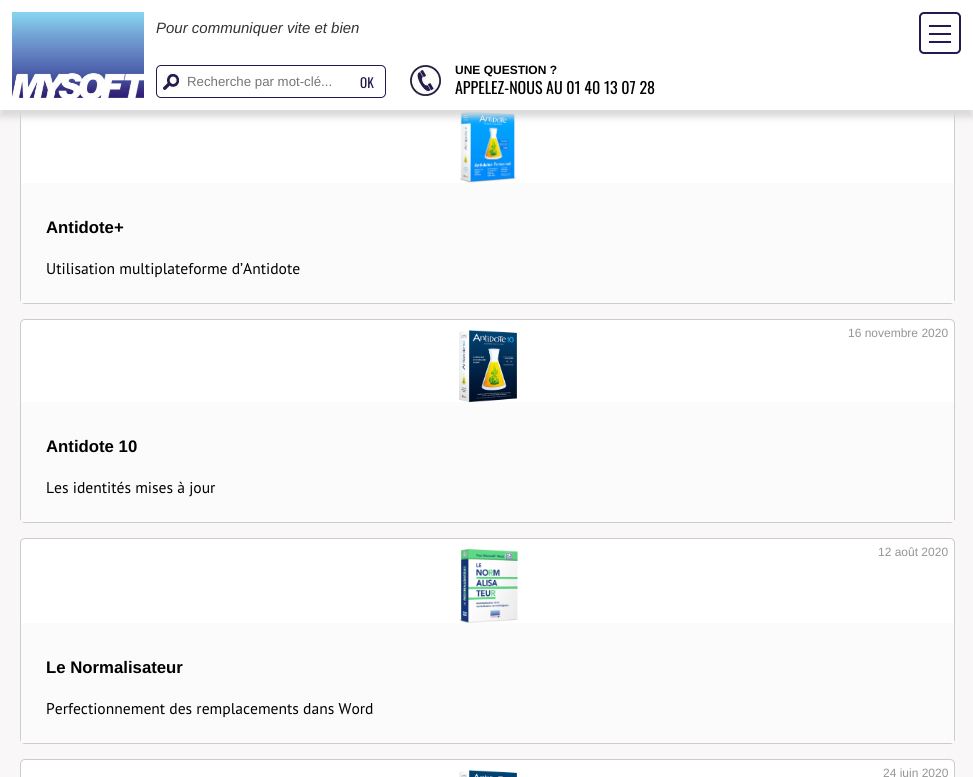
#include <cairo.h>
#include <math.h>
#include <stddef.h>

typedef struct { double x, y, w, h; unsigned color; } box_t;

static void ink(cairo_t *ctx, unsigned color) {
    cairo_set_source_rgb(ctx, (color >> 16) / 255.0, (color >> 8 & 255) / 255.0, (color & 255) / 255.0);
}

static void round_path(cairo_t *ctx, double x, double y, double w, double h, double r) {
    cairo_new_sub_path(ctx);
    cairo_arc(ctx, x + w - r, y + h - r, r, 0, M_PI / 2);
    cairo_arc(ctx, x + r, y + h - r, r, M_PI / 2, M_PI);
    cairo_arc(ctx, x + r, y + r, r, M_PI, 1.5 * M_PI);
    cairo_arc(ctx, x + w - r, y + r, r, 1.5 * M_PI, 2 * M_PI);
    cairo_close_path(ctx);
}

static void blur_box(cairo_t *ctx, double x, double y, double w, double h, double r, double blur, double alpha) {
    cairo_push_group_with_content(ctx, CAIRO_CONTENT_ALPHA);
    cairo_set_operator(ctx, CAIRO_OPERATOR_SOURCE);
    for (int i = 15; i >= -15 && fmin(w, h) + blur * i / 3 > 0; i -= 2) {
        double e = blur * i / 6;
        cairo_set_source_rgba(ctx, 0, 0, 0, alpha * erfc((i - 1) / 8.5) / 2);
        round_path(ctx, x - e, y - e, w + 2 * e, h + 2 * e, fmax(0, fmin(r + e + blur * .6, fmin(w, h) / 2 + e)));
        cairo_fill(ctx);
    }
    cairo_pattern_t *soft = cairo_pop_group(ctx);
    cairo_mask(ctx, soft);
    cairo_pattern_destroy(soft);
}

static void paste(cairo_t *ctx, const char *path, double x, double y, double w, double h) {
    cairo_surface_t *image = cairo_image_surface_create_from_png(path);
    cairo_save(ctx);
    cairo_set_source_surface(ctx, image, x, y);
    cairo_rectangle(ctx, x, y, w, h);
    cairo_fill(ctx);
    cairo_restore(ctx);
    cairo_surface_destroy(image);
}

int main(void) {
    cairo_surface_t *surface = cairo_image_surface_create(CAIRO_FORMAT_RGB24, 973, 777);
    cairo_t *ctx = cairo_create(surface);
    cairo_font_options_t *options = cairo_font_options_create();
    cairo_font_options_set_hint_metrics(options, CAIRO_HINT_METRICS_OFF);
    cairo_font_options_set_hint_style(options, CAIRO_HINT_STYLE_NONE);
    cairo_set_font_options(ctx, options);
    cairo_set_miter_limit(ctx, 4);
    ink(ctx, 0xF9F7F7);
    cairo_paint(ctx);
    ink(ctx, 0xFFFFFF);
    round_path(ctx, 20.5, 100.5, 934, 203, 4.5);
    cairo_fill_preserve(ctx);
    ink(ctx, 0xCCCCCC);
    cairo_set_line_width(ctx, 1);
    cairo_stroke(ctx);
    paste(ctx, "media/4.png", 460, 111, 56, 72);
    ink(ctx, 0xDAD9D9);
    blur_box(ctx, 0, 7, 973, 110, 0, 3.5, 1);
    ink(ctx, 0xFFFFFF);
    cairo_rectangle(ctx, 0, 0, 973, 110);
    cairo_fill(ctx);
    paste(ctx, "media/1.png", 12, 12, 132, 86);
    cairo_select_font_face(ctx, "Liberation Sans", CAIRO_FONT_SLANT_ITALIC, CAIRO_FONT_WEIGHT_NORMAL);
    cairo_set_font_size(ctx, 15);
    ink(ctx, 0x333333);
    cairo_move_to(ctx, 156, 33);
    cairo_show_text(ctx, "Pour communiquer vite et bien");
    paste(ctx, "media/2.png", 162, 74, 17, 17);
    round_path(ctx, 156.5, 65.5, 229, 32, 4.5);
    ink(ctx, 0x231B50);
    cairo_stroke(ctx);
    cairo_select_font_face(ctx, "Liberation Sans", CAIRO_FONT_SLANT_NORMAL, CAIRO_FONT_WEIGHT_NORMAL);
    cairo_set_font_size(ctx, 13.25);
    ink(ctx, 0x757575);
    cairo_move_to(ctx, 187, 86);
    cairo_show_text(ctx, "Recherche par mot-clé...");
    cairo_select_font_face(ctx, "Oswald", CAIRO_FONT_SLANT_NORMAL, CAIRO_FONT_WEIGHT_NORMAL);
    ink(ctx, 0x231B50);
    cairo_move_to(ctx, 360, 88);
    cairo_show_text(ctx, "OK");
    paste(ctx, "media/3.png", 410, 65, 31, 31);
    cairo_select_font_face(ctx, "Liberation Sans", CAIRO_FONT_SLANT_NORMAL, CAIRO_FONT_WEIGHT_BOLD);
    cairo_set_font_size(ctx, 12);
    ink(ctx, 0x000000);
    cairo_move_to(ctx, 455, 74);
    cairo_show_text(ctx, "UNE QUESTION ?");
    cairo_select_font_face(ctx, "Oswald", CAIRO_FONT_SLANT_NORMAL, CAIRO_FONT_WEIGHT_NORMAL);
    cairo_set_font_size(ctx, 16);
    cairo_move_to(ctx, 455, 94);
    cairo_show_text(ctx, "APPELEZ-NOUS AU 01 40 13 07 28");
    round_path(ctx, 920, 13, 40, 40, 4);
    ink(ctx, 0x231B50);
    cairo_set_line_width(ctx, 2);
    cairo_stroke(ctx);
    {
        static const box_t items[] = {
            {929, 25, 22, 2, 0x231B50},
            {929, 33, 22, 2, 0x231B50},
            {929, 41, 22, 2, 0x231B50},
            {21, 183, 933, 120, 0xFBFBFB},
        };
        for (size_t i = 0; i < sizeof items / sizeof *items; i++) {
            ink(ctx, items[i].color);
            cairo_rectangle(ctx, items[i].x, items[i].y, items[i].w, items[i].h);
            cairo_fill(ctx);
        }
    }
    cairo_select_font_face(ctx, "Liberation Sans", CAIRO_FONT_SLANT_NORMAL, CAIRO_FONT_WEIGHT_BOLD);
    cairo_set_font_size(ctx, 16.75);
    ink(ctx, 0x000000);
    cairo_move_to(ctx, 46, 233);
    cairo_show_text(ctx, "Antidote+");
    cairo_select_font_face(ctx, "PT Sans", CAIRO_FONT_SLANT_NORMAL, CAIRO_FONT_WEIGHT_NORMAL);
    cairo_set_font_size(ctx, 15.6);
    cairo_move_to(ctx, 46, 274);
    cairo_show_text(ctx, "Utilisation multiplateforme d’Antidote");
    ink(ctx, 0xFFFFFF);
    round_path(ctx, 20.5, 319.5, 934, 203, 4.5);
    cairo_fill_preserve(ctx);
    ink(ctx, 0xCCCCCC);
    cairo_set_line_width(ctx, 1);
    cairo_stroke(ctx);
    cairo_select_font_face(ctx, "Liberation Sans", CAIRO_FONT_SLANT_NORMAL, CAIRO_FONT_WEIGHT_NORMAL);
    cairo_set_font_size(ctx, 12);
    ink(ctx, 0x959595);
    cairo_move_to(ctx, 848, 337);
    cairo_show_text(ctx, "16 novembre 2020");
    paste(ctx, "media/5.png", 459, 330, 58, 72);
    ink(ctx, 0xFBFBFB);
    cairo_rectangle(ctx, 21, 402, 933, 120);
    cairo_fill(ctx);
    cairo_select_font_face(ctx, "Liberation Sans", CAIRO_FONT_SLANT_NORMAL, CAIRO_FONT_WEIGHT_BOLD);
    cairo_set_font_size(ctx, 16.75);
    ink(ctx, 0x000000);
    cairo_move_to(ctx, 46, 452);
    cairo_show_text(ctx, "Antidote 10");
    cairo_select_font_face(ctx, "PT Sans", CAIRO_FONT_SLANT_NORMAL, CAIRO_FONT_WEIGHT_NORMAL);
    cairo_set_font_size(ctx, 15.6);
    cairo_move_to(ctx, 46, 493);
    cairo_show_text(ctx, "Les identités mises à jour");
    ink(ctx, 0xFFFFFF);
    round_path(ctx, 20.5, 538.5, 934, 205, 4.5);
    cairo_fill_preserve(ctx);
    ink(ctx, 0xCCCCCC);
    cairo_stroke(ctx);
    cairo_select_font_face(ctx, "Liberation Sans", CAIRO_FONT_SLANT_NORMAL, CAIRO_FONT_WEIGHT_NORMAL);
    cairo_set_font_size(ctx, 12);
    ink(ctx, 0x959595);
    cairo_move_to(ctx, 878, 556);
    cairo_show_text(ctx, "12 août 2020");
    paste(ctx, "media/6.png", 459, 549, 59, 74);
    ink(ctx, 0xFBFBFB);
    cairo_rectangle(ctx, 21, 623, 933, 120);
    cairo_fill(ctx);
    cairo_select_font_face(ctx, "Liberation Sans", CAIRO_FONT_SLANT_NORMAL, CAIRO_FONT_WEIGHT_BOLD);
    cairo_set_font_size(ctx, 16.75);
    ink(ctx, 0x000000);
    cairo_move_to(ctx, 46, 673);
    cairo_show_text(ctx, "Le Normalisateur");
    cairo_select_font_face(ctx, "PT Sans", CAIRO_FONT_SLANT_NORMAL, CAIRO_FONT_WEIGHT_NORMAL);
    cairo_set_font_size(ctx, 15.6);
    cairo_move_to(ctx, 46, 714);
    cairo_show_text(ctx, "Perfectionnement des remplacements dans Word");
    ink(ctx, 0xFFFFFF);
    round_path(ctx, 20.5, 759.5, 934, 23, 4.5);
    cairo_fill_preserve(ctx);
    ink(ctx, 0xCCCCCC);
    cairo_stroke(ctx);
    paste(ctx, "media/7.png", 459, 770, 58, 7);
    cairo_select_font_face(ctx, "Liberation Sans", CAIRO_FONT_SLANT_NORMAL, CAIRO_FONT_WEIGHT_NORMAL);
    cairo_set_font_size(ctx, 12);
    ink(ctx, 0x959595);
    cairo_move_to(ctx, 883, 777);
    cairo_show_text(ctx, "24 juin 2020");
    cairo_surface_write_to_png(surface, "image.png");
    cairo_font_options_destroy(options);
    cairo_destroy(ctx);
    cairo_surface_destroy(surface);
    return 0;
}
